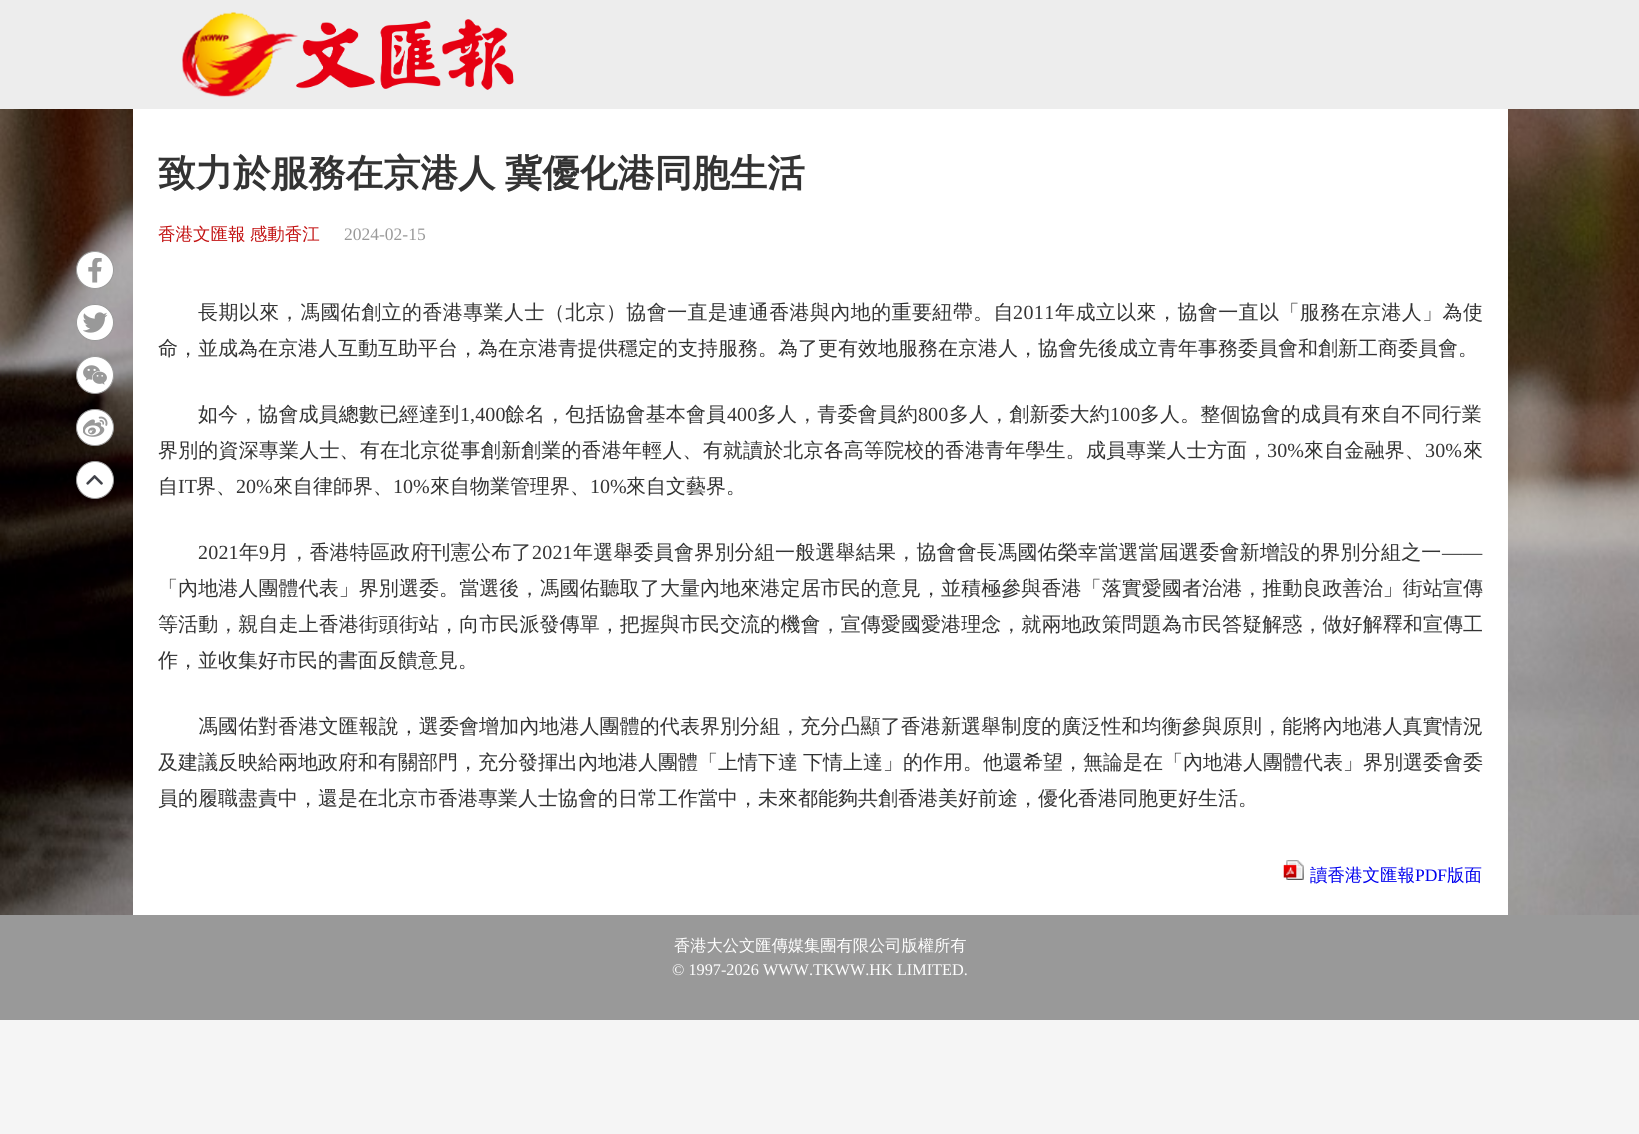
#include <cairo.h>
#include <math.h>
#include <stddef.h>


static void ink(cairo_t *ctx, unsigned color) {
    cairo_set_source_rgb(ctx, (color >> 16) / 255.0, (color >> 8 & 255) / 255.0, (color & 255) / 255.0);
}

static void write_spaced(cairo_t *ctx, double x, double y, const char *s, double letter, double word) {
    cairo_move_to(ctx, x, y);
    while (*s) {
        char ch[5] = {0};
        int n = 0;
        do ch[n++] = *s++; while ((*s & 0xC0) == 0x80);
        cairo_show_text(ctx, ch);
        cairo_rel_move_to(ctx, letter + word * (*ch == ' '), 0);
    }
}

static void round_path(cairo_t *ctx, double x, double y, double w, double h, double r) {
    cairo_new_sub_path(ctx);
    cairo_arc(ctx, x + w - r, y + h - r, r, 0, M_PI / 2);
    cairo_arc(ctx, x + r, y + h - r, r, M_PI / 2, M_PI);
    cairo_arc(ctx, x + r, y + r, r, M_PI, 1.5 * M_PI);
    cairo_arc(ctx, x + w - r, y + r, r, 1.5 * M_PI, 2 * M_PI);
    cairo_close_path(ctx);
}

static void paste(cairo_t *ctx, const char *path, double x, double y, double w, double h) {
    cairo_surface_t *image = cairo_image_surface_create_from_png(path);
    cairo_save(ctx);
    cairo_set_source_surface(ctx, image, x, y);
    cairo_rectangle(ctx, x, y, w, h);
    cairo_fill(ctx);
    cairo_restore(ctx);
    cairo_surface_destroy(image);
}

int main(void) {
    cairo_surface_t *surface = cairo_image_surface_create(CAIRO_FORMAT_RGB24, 1639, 1134);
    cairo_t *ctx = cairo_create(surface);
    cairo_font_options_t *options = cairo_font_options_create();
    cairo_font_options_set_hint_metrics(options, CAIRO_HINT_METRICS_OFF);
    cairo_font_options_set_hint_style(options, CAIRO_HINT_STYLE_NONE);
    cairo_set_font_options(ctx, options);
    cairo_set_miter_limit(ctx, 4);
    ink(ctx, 0xF5F5F5);
    cairo_paint(ctx);
    ink(ctx, 0xEDEDED);
    cairo_rectangle(ctx, 0, 0, 1639, 109);
    cairo_fill(ctx);
    paste(ctx, "media/1.png", 182, 12, 332, 85);
    paste(ctx, "media/7.png", 0, 109, 1639, 806);
    ink(ctx, 0xFFFFFF);
    cairo_arc(ctx, 95, 270, 18.5, 0, 2 * M_PI);
    cairo_fill_preserve(ctx);
    ink(ctx, 0x999999);
    cairo_set_line_width(ctx, 1);
    cairo_stroke(ctx);
    paste(ctx, "media/2.png", 88, 258, 14, 25);
    ink(ctx, 0xFFFFFF);
    round_path(ctx, 76.5, 304.5, 37, 36, 18);
    cairo_fill_preserve(ctx);
    ink(ctx, 0x999999);
    cairo_stroke(ctx);
    paste(ctx, "media/3.png", 83, 312, 25, 21);
    ink(ctx, 0xFFFFFF);
    cairo_arc(ctx, 95, 375, 18.5, 0, 2 * M_PI);
    cairo_fill_preserve(ctx);
    ink(ctx, 0x999999);
    cairo_stroke(ctx);
    paste(ctx, "media/4.png", 83, 365, 24, 20);
    ink(ctx, 0xFFFFFF);
    round_path(ctx, 76.5, 409.5, 37, 36, 18);
    cairo_fill_preserve(ctx);
    ink(ctx, 0x999999);
    cairo_stroke(ctx);
    paste(ctx, "media/5.png", 83, 416, 25, 21);
    ink(ctx, 0xFFFFFF);
    cairo_arc(ctx, 95, 480, 18.5, 0, 2 * M_PI);
    cairo_fill_preserve(ctx);
    ink(ctx, 0x999999);
    cairo_stroke(ctx);
    paste(ctx, "media/6.png", 86, 475, 17, 10);
    ink(ctx, 0xFFFFFF);
    cairo_rectangle(ctx, 133, 109, 1375, 806);
    cairo_fill(ctx);
    cairo_select_font_face(ctx, "WenQuanYi Zen Hei", CAIRO_FONT_SLANT_NORMAL, CAIRO_FONT_WEIGHT_BOLD);
    cairo_set_font_size(ctx, 37.5);
    ink(ctx, 0x333333);
    write_spaced(ctx, 158, 186, "致力於服務在京港人 冀優化港同胞生活", 0, -2);
    cairo_select_font_face(ctx, "WenQuanYi Zen Hei Medium", CAIRO_FONT_SLANT_NORMAL, CAIRO_FONT_WEIGHT_NORMAL);
    cairo_set_font_size(ctx, 17.5);
    ink(ctx, 0xC21010);
    write_spaced(ctx, 158, 240, "香港文匯報 感動香江", 0, -1);
    cairo_select_font_face(ctx, "Liberation Serif", CAIRO_FONT_SLANT_NORMAL, CAIRO_FONT_WEIGHT_NORMAL);
    ink(ctx, 0x999999);
    cairo_move_to(ctx, 344, 240);
    cairo_show_text(ctx, "2024-02-15");
    cairo_select_font_face(ctx, "WenQuanYi Zen Hei Medium", CAIRO_FONT_SLANT_NORMAL, CAIRO_FONT_WEIGHT_NORMAL);
    cairo_set_font_size(ctx, 20);
    ink(ctx, 0x333333);
    write_spaced(ctx, 198, 319, "長期以來，馮國佑創立的香港專業人士（北京）協會一直是連通香港與內地的重要紐帶。自", 0.4, 0);
    cairo_select_font_face(ctx, "Liberation Serif", CAIRO_FONT_SLANT_NORMAL, CAIRO_FONT_WEIGHT_NORMAL);
    write_spaced(ctx, 1013, 319, "2011", 0.4, 0);
    cairo_select_font_face(ctx, "WenQuanYi Zen Hei Medium", CAIRO_FONT_SLANT_NORMAL, CAIRO_FONT_WEIGHT_NORMAL);
    write_spaced(ctx, 1055, 319, "年成立以來，協會一直以「服務在京港人」為使", 0.4, 0);
    cairo_move_to(ctx, 158, 355);
    cairo_show_text(ctx, "命，並成為在京港人互動互助平台，為在京港青提供穩定的支持服務。為了更有效地服務在京港人，協會先後成立青年事務委員會和創新工商委員會。");
    write_spaced(ctx, 198, 421, "如今，協會成員總數已經達到", 0.1, 0);
    cairo_select_font_face(ctx, "Liberation Serif", CAIRO_FONT_SLANT_NORMAL, CAIRO_FONT_WEIGHT_NORMAL);
    write_spaced(ctx, 460, 421, "1,400", 0.1, 0);
    cairo_select_font_face(ctx, "WenQuanYi Zen Hei Medium", CAIRO_FONT_SLANT_NORMAL, CAIRO_FONT_WEIGHT_NORMAL);
    write_spaced(ctx, 505, 421, "餘名，包括協會基本會員", 0.1, 0);
    cairo_select_font_face(ctx, "Liberation Serif", CAIRO_FONT_SLANT_NORMAL, CAIRO_FONT_WEIGHT_NORMAL);
    write_spaced(ctx, 727, 421, "400", 0.1, 0);
    cairo_select_font_face(ctx, "WenQuanYi Zen Hei Medium", CAIRO_FONT_SLANT_NORMAL, CAIRO_FONT_WEIGHT_NORMAL);
    write_spaced(ctx, 757, 421, "多人，青委會員約", 0.1, 0);
    cairo_select_font_face(ctx, "Liberation Serif", CAIRO_FONT_SLANT_NORMAL, CAIRO_FONT_WEIGHT_NORMAL);
    write_spaced(ctx, 918, 421, "800", 0.1, 0);
    cairo_select_font_face(ctx, "WenQuanYi Zen Hei Medium", CAIRO_FONT_SLANT_NORMAL, CAIRO_FONT_WEIGHT_NORMAL);
    write_spaced(ctx, 949, 421, "多人，創新委大約", 0.1, 0);
    cairo_select_font_face(ctx, "Liberation Serif", CAIRO_FONT_SLANT_NORMAL, CAIRO_FONT_WEIGHT_NORMAL);
    write_spaced(ctx, 1110, 421, "100", 0.1, 0);
    cairo_select_font_face(ctx, "WenQuanYi Zen Hei Medium", CAIRO_FONT_SLANT_NORMAL, CAIRO_FONT_WEIGHT_NORMAL);
    write_spaced(ctx, 1140, 421, "多人。整個協會的成員有來自不同行業", 0.1, 0);
    write_spaced(ctx, 158, 457, "界別的資深專業人士、有在北京從事創新創業的香港年輕人、有就讀於北京各高等院校的香港青年學生。成員專業人士方面，", 0.17, 0);
    cairo_select_font_face(ctx, "Liberation Serif", CAIRO_FONT_SLANT_NORMAL, CAIRO_FONT_WEIGHT_NORMAL);
    write_spaced(ctx, 1267, 457, "30%", 0.17, 0);
    cairo_select_font_face(ctx, "WenQuanYi Zen Hei Medium", CAIRO_FONT_SLANT_NORMAL, CAIRO_FONT_WEIGHT_NORMAL);
    write_spaced(ctx, 1304, 457, "來自金融界、", 0.17, 0);
    cairo_select_font_face(ctx, "Liberation Serif", CAIRO_FONT_SLANT_NORMAL, CAIRO_FONT_WEIGHT_NORMAL);
    write_spaced(ctx, 1425, 457, "30%", 0.17, 0);
    cairo_select_font_face(ctx, "WenQuanYi Zen Hei Medium", CAIRO_FONT_SLANT_NORMAL, CAIRO_FONT_WEIGHT_NORMAL);
    write_spaced(ctx, 1463, 457, "來", 0.17, 0);
    cairo_move_to(ctx, 158, 493);
    cairo_show_text(ctx, "自");
    cairo_select_font_face(ctx, "Liberation Serif", CAIRO_FONT_SLANT_NORMAL, CAIRO_FONT_WEIGHT_NORMAL);
    cairo_move_to(ctx, 178, 493);
    cairo_show_text(ctx, "IT");
    cairo_select_font_face(ctx, "WenQuanYi Zen Hei Medium", CAIRO_FONT_SLANT_NORMAL, CAIRO_FONT_WEIGHT_NORMAL);
    cairo_move_to(ctx, 196, 493);
    cairo_show_text(ctx, "界、");
    cairo_select_font_face(ctx, "Liberation Serif", CAIRO_FONT_SLANT_NORMAL, CAIRO_FONT_WEIGHT_NORMAL);
    cairo_move_to(ctx, 236, 493);
    cairo_show_text(ctx, "20%");
    cairo_select_font_face(ctx, "WenQuanYi Zen Hei Medium", CAIRO_FONT_SLANT_NORMAL, CAIRO_FONT_WEIGHT_NORMAL);
    cairo_move_to(ctx, 273, 493);
    cairo_show_text(ctx, "來自律師界、");
    cairo_select_font_face(ctx, "Liberation Serif", CAIRO_FONT_SLANT_NORMAL, CAIRO_FONT_WEIGHT_NORMAL);
    cairo_move_to(ctx, 393, 493);
    cairo_show_text(ctx, "10%");
    cairo_select_font_face(ctx, "WenQuanYi Zen Hei Medium", CAIRO_FONT_SLANT_NORMAL, CAIRO_FONT_WEIGHT_NORMAL);
    cairo_move_to(ctx, 430, 493);
    cairo_show_text(ctx, "來自物業管理界、");
    cairo_select_font_face(ctx, "Liberation Serif", CAIRO_FONT_SLANT_NORMAL, CAIRO_FONT_WEIGHT_NORMAL);
    cairo_move_to(ctx, 590, 493);
    cairo_show_text(ctx, "10%");
    cairo_select_font_face(ctx, "WenQuanYi Zen Hei Medium", CAIRO_FONT_SLANT_NORMAL, CAIRO_FONT_WEIGHT_NORMAL);
    cairo_move_to(ctx, 626, 493);
    cairo_show_text(ctx, "來自文藝界。");
    cairo_select_font_face(ctx, "Liberation Serif", CAIRO_FONT_SLANT_NORMAL, CAIRO_FONT_WEIGHT_NORMAL);
    write_spaced(ctx, 198, 559, "2021", 0.2, 0);
    cairo_select_font_face(ctx, "WenQuanYi Zen Hei Medium", CAIRO_FONT_SLANT_NORMAL, CAIRO_FONT_WEIGHT_NORMAL);
    write_spaced(ctx, 239, 559, "年", 0.2, 0);
    cairo_select_font_face(ctx, "Liberation Serif", CAIRO_FONT_SLANT_NORMAL, CAIRO_FONT_WEIGHT_NORMAL);
    write_spaced(ctx, 259, 559, "9", 0.2, 0);
    cairo_select_font_face(ctx, "WenQuanYi Zen Hei Medium", CAIRO_FONT_SLANT_NORMAL, CAIRO_FONT_WEIGHT_NORMAL);
    write_spaced(ctx, 269, 559, "月，香港特區政府刊憲公布了", 0.2, 0);
    cairo_select_font_face(ctx, "Liberation Serif", CAIRO_FONT_SLANT_NORMAL, CAIRO_FONT_WEIGHT_NORMAL);
    write_spaced(ctx, 532, 559, "2021", 0.2, 0);
    cairo_select_font_face(ctx, "WenQuanYi Zen Hei Medium", CAIRO_FONT_SLANT_NORMAL, CAIRO_FONT_WEIGHT_NORMAL);
    write_spaced(ctx, 573, 559, "年選舉委員會界別分組一般選舉結果，協會會長馮國佑榮幸當選當屆選委會新增設的界別分組之一", 0.2, 0);
    cairo_select_font_face(ctx, "Liberation Serif", CAIRO_FONT_SLANT_NORMAL, CAIRO_FONT_WEIGHT_NORMAL);
    write_spaced(ctx, 1442, 559, "——", 0.2, 0);
    cairo_select_font_face(ctx, "WenQuanYi Zen Hei Medium", CAIRO_FONT_SLANT_NORMAL, CAIRO_FONT_WEIGHT_NORMAL);
    write_spaced(ctx, 158, 595, "「內地港人團體代表」界別選委。當選後，馮國佑聽取了大量內地來港定居市民的意見，並積極參與香港「落實愛國者治港，推動良政善治」街站宣傳", 0.08, 0);
    write_spaced(ctx, 158, 631, "等活動，親自走上香港街頭街站，向市民派發傳單，把握與市民交流的機會，宣傳愛國愛港理念，就兩地政策問題為市民答疑解惑，做好解釋和宣傳工", 0.08, 0);
    cairo_move_to(ctx, 158, 667);
    cairo_show_text(ctx, "作，並收集好市民的書面反饋意見。");
    write_spaced(ctx, 198, 733, "馮國佑對香港文匯報說，選委會增加內地港人團體的代表界別分組，充分凸顯了香港新選舉制度的廣泛性和均衡參與原則，能將內地港人真實情況", 0.08, 0);
    write_spaced(ctx, 158, 769, "及建議反映給兩地政府和有關部門，充分發揮出內地港人團體「上情下達 下情上達」的作用。他還希望，無論是在「內地港人團體代表」界別選委會委", 0, -1);
    cairo_move_to(ctx, 158, 805);
    cairo_show_text(ctx, "員的履職盡責中，還是在北京市香港專業人士協會的日常工作當中，未來都能夠共創香港美好前途，優化香港同胞更好生活。");
    paste(ctx, "media/8.png", 1283, 860, 21, 20);
    cairo_set_font_size(ctx, 17.5);
    ink(ctx, 0x0000EE);
    cairo_move_to(ctx, 1310, 881);
    cairo_show_text(ctx, "讀香港文匯報");
    cairo_select_font_face(ctx, "Liberation Serif", CAIRO_FONT_SLANT_NORMAL, CAIRO_FONT_WEIGHT_NORMAL);
    cairo_move_to(ctx, 1415, 881);
    cairo_show_text(ctx, "PDF");
    cairo_select_font_face(ctx, "WenQuanYi Zen Hei Medium", CAIRO_FONT_SLANT_NORMAL, CAIRO_FONT_WEIGHT_NORMAL);
    cairo_move_to(ctx, 1447, 881);
    cairo_show_text(ctx, "版面");
    ink(ctx, 0x999999);
    cairo_rectangle(ctx, 0, 915, 1639, 105);
    cairo_fill(ctx);
    cairo_set_font_size(ctx, 16.25);
    ink(ctx, 0xFFFFFF);
    cairo_move_to(ctx, 674, 951);
    cairo_show_text(ctx, "香港大公文匯傳媒集團有限公司版權所有");
    cairo_select_font_face(ctx, "Liberation Serif", CAIRO_FONT_SLANT_NORMAL, CAIRO_FONT_WEIGHT_NORMAL);
    cairo_move_to(ctx, 672, 975);
    cairo_show_text(ctx, "© 1997-2026 WWW.TKWW.HK LIMITED.");
    cairo_surface_write_to_png(surface, "image.png");
    cairo_font_options_destroy(options);
    cairo_destroy(ctx);
    cairo_surface_destroy(surface);
    return 0;
}
